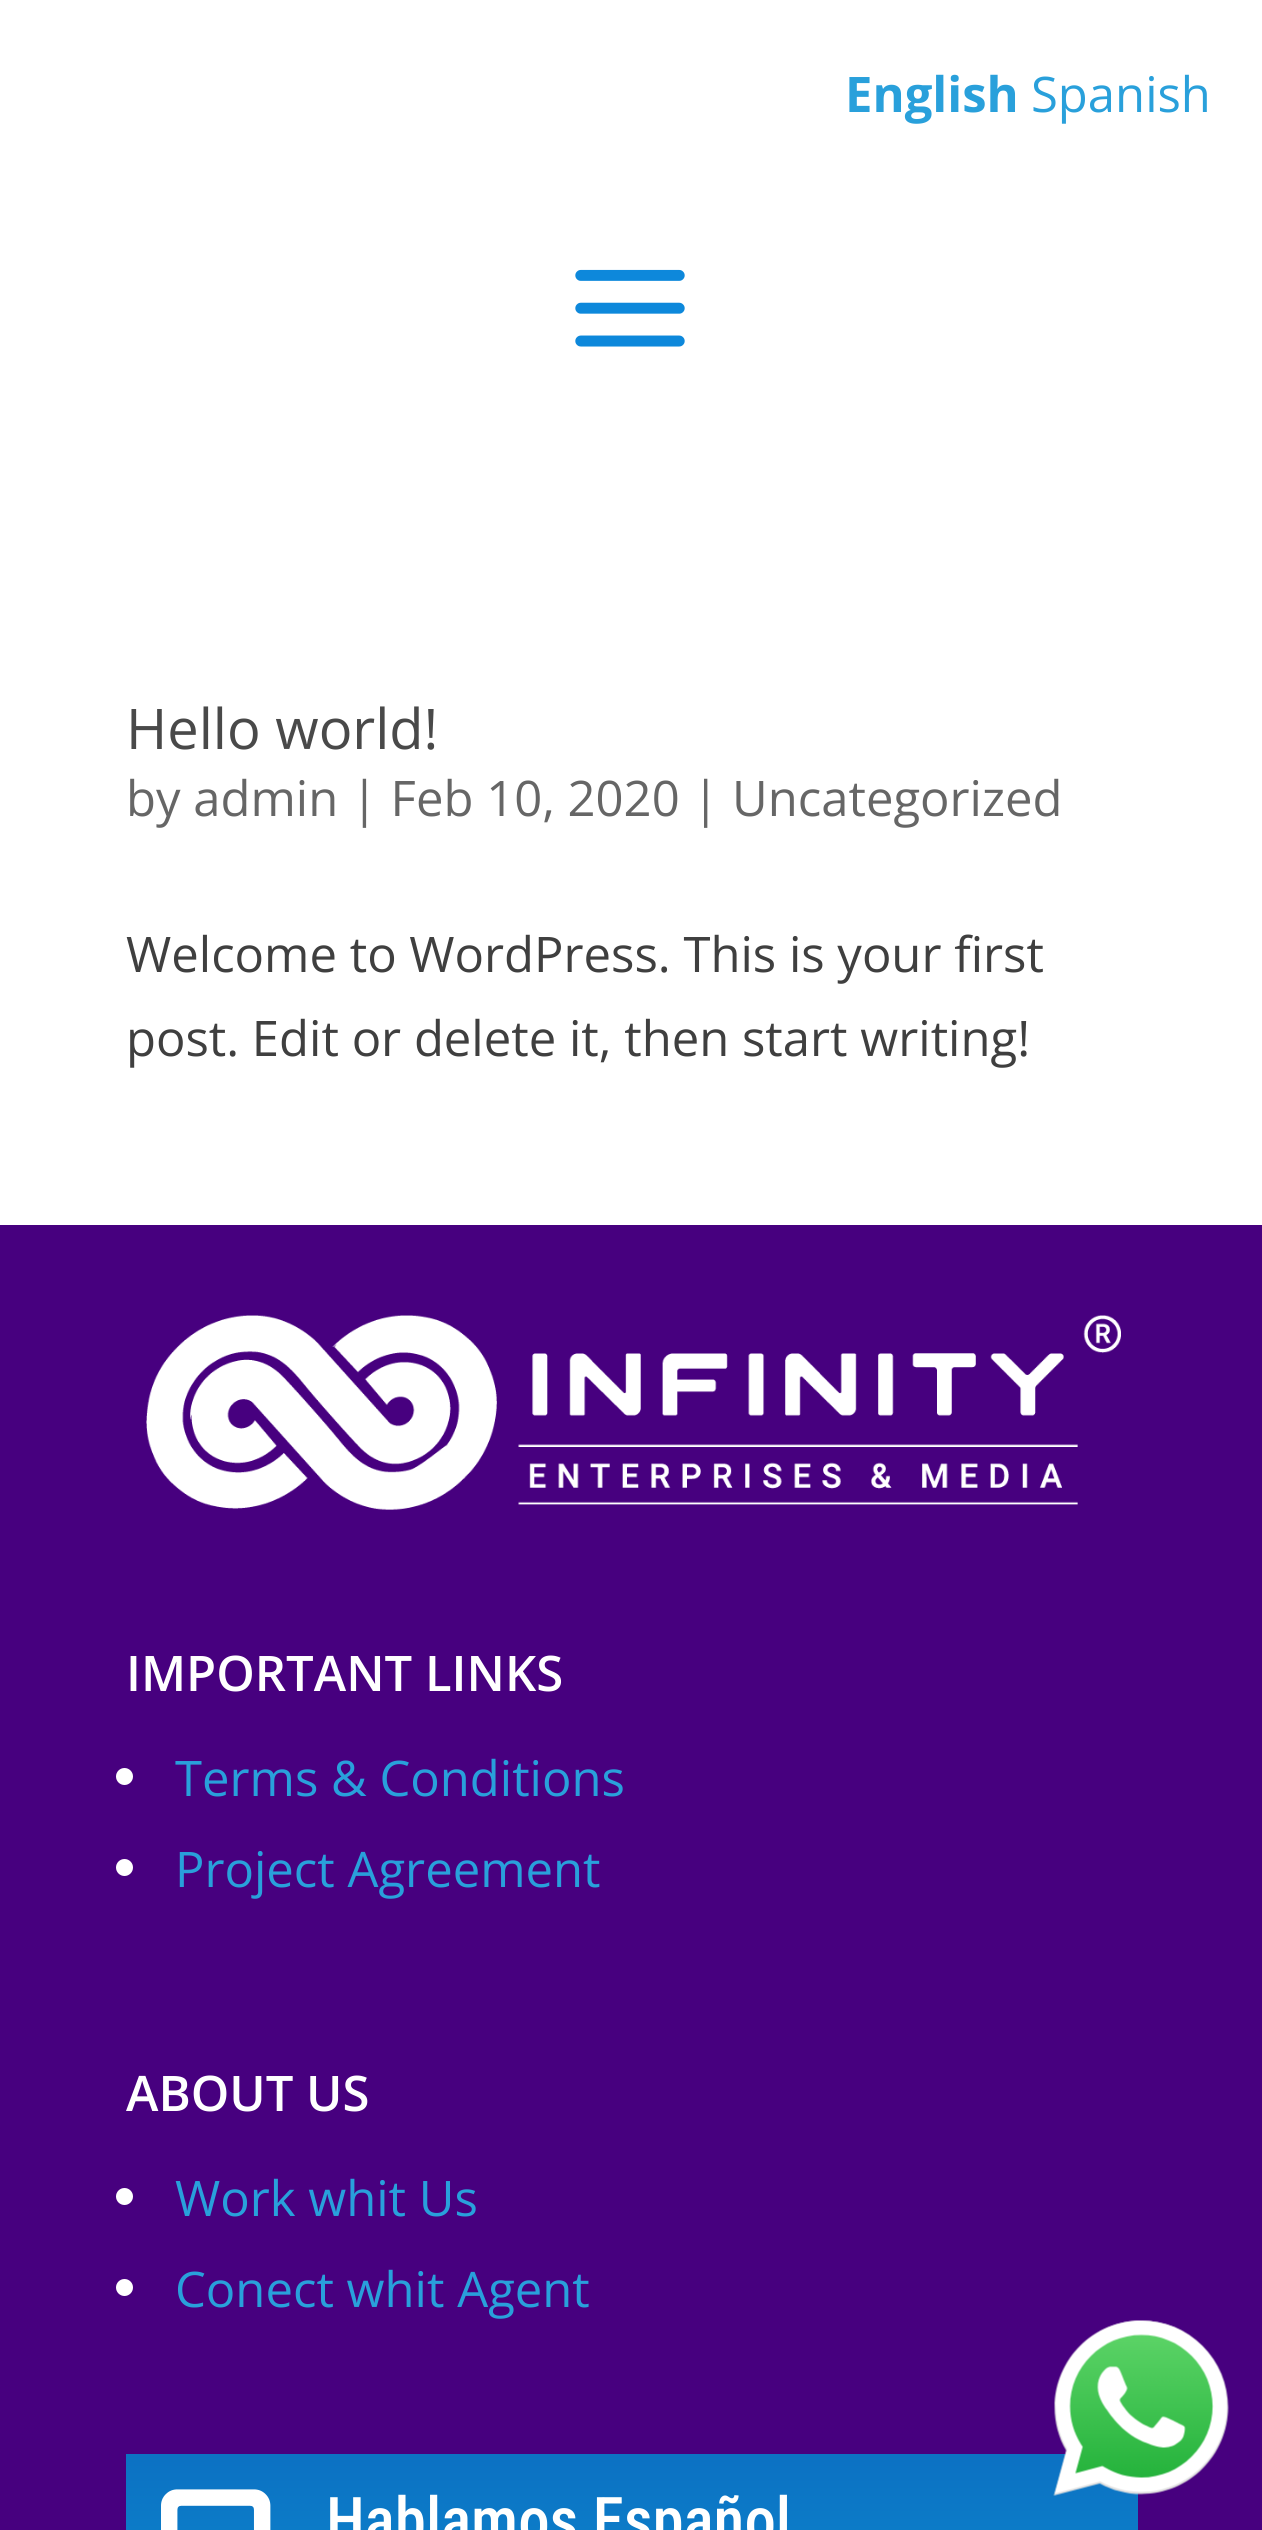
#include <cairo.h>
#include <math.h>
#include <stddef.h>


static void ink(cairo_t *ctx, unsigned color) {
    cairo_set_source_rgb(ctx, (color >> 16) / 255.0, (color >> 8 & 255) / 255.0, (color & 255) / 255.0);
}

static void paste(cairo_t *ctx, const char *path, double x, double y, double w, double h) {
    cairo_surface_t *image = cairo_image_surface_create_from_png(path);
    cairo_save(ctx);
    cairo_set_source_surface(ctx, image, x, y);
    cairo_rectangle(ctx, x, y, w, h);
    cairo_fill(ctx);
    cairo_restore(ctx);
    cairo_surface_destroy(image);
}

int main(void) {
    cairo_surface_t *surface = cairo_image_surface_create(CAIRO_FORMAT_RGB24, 1262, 2530);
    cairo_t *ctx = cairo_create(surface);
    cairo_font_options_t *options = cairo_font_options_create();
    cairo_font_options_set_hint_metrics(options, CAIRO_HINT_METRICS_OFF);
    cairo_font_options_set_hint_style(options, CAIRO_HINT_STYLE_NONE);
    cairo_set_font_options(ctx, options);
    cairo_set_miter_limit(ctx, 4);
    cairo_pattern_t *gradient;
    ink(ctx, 0xFFFFFF);
    cairo_paint(ctx);
    cairo_select_font_face(ctx, "Open Sans", CAIRO_FONT_SLANT_NORMAL, CAIRO_FONT_WEIGHT_BOLD);
    cairo_set_font_size(ctx, 49);
    ink(ctx, 0x29A0DB);
    cairo_move_to(ctx, 845, 112);
    cairo_show_text(ctx, "English");
    cairo_select_font_face(ctx, "Open Sans", CAIRO_FONT_SLANT_NORMAL, CAIRO_FONT_WEIGHT_NORMAL);
    cairo_move_to(ctx, 1031, 112);
    cairo_show_text(ctx, "Spanish");
    paste(ctx, "media/1.png", 575, 269, 110, 78);
    cairo_set_font_size(ctx, 56);
    ink(ctx, 0x494949);
    cairo_move_to(ctx, 126, 749);
    cairo_show_text(ctx, "Hello world!");
    cairo_set_font_size(ctx, 49);
    ink(ctx, 0x666666);
    cairo_move_to(ctx, 126, 816);
    cairo_show_text(ctx, "by admin | Feb 10, 2020 | Uncategorized");
    ink(ctx, 0x3F3F3F);
    cairo_move_to(ctx, 126, 972);
    cairo_show_text(ctx, "Welcome to WordPress. This is your first");
    cairo_move_to(ctx, 126, 1056);
    cairo_show_text(ctx, "post. Edit or delete it, then start writing!");
    ink(ctx, 0x47007F);
    cairo_rectangle(ctx, 0, 1225, 1262, 1305);
    cairo_fill(ctx);
    paste(ctx, "media/2.png", 146, 1315, 975, 195);
    cairo_select_font_face(ctx, "Open Sans SemiBold", CAIRO_FONT_SLANT_NORMAL, CAIRO_FONT_WEIGHT_NORMAL);
    ink(ctx, 0xFFFFFF);
    cairo_move_to(ctx, 126, 1691);
    cairo_show_text(ctx, "IMPORTANT LINKS");
    cairo_new_path(ctx);
    cairo_arc(ctx, 124.5, 1776.5, 8.5, 0, 2 * M_PI);
    cairo_fill(ctx);
    cairo_select_font_face(ctx, "Open Sans", CAIRO_FONT_SLANT_NORMAL, CAIRO_FONT_WEIGHT_NORMAL);
    ink(ctx, 0x29A0DB);
    cairo_move_to(ctx, 175, 1796);
    cairo_show_text(ctx, "Terms & Conditions");
    ink(ctx, 0xFFFFFF);
    cairo_new_path(ctx);
    cairo_arc(ctx, 124.5, 1867.5, 8.5, 0, 2 * M_PI);
    cairo_fill(ctx);
    ink(ctx, 0x29A0DB);
    cairo_move_to(ctx, 175, 1887);
    cairo_show_text(ctx, "Project Agreement");
    cairo_select_font_face(ctx, "Open Sans SemiBold", CAIRO_FONT_SLANT_NORMAL, CAIRO_FONT_WEIGHT_NORMAL);
    ink(ctx, 0xFFFFFF);
    cairo_move_to(ctx, 126, 2111);
    cairo_show_text(ctx, "ABOUT US");
    cairo_new_path(ctx);
    cairo_arc(ctx, 124.5, 2196.5, 8.5, 0, 2 * M_PI);
    cairo_fill(ctx);
    cairo_select_font_face(ctx, "Open Sans", CAIRO_FONT_SLANT_NORMAL, CAIRO_FONT_WEIGHT_NORMAL);
    ink(ctx, 0x29A0DB);
    cairo_move_to(ctx, 175, 2216);
    cairo_show_text(ctx, "Work whit Us");
    ink(ctx, 0xFFFFFF);
    cairo_new_path(ctx);
    cairo_arc(ctx, 124.5, 2287.5, 8.5, 0, 2 * M_PI);
    cairo_fill(ctx);
    ink(ctx, 0x29A0DB);
    cairo_move_to(ctx, 175, 2307);
    cairo_show_text(ctx, "Conect whit Agent");
    gradient = cairo_pattern_create_linear(632, 2454, 632, 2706);
    cairo_pattern_add_color_stop_rgba(gradient, 0, 0.047, 0.443, 0.765, 1);
    cairo_pattern_add_color_stop_rgba(gradient, 1, 0.047, 0.573, 0.82, 1);
    cairo_set_source(ctx, gradient);
    cairo_pattern_destroy(gradient);
    cairo_rectangle(ctx, 126, 2454, 1012, 76);
    cairo_fill(ctx);
    paste(ctx, "media/3.png", 161, 2489, 110, 41);
    cairo_select_font_face(ctx, "Roboto Condensed Medium", CAIRO_FONT_SLANT_NORMAL, CAIRO_FONT_WEIGHT_NORMAL);
    cairo_set_font_size(ctx, 63);
    ink(ctx, 0xFFFFFF);
    cairo_move_to(ctx, 326, 2542);
    cairo_show_text(ctx, "Hablamos Español");
    paste(ctx, "media/4.png", 1053, 2320, 176, 176);
    cairo_surface_write_to_png(surface, "image.png");
    cairo_font_options_destroy(options);
    cairo_destroy(ctx);
    cairo_surface_destroy(surface);
    return 0;
}
